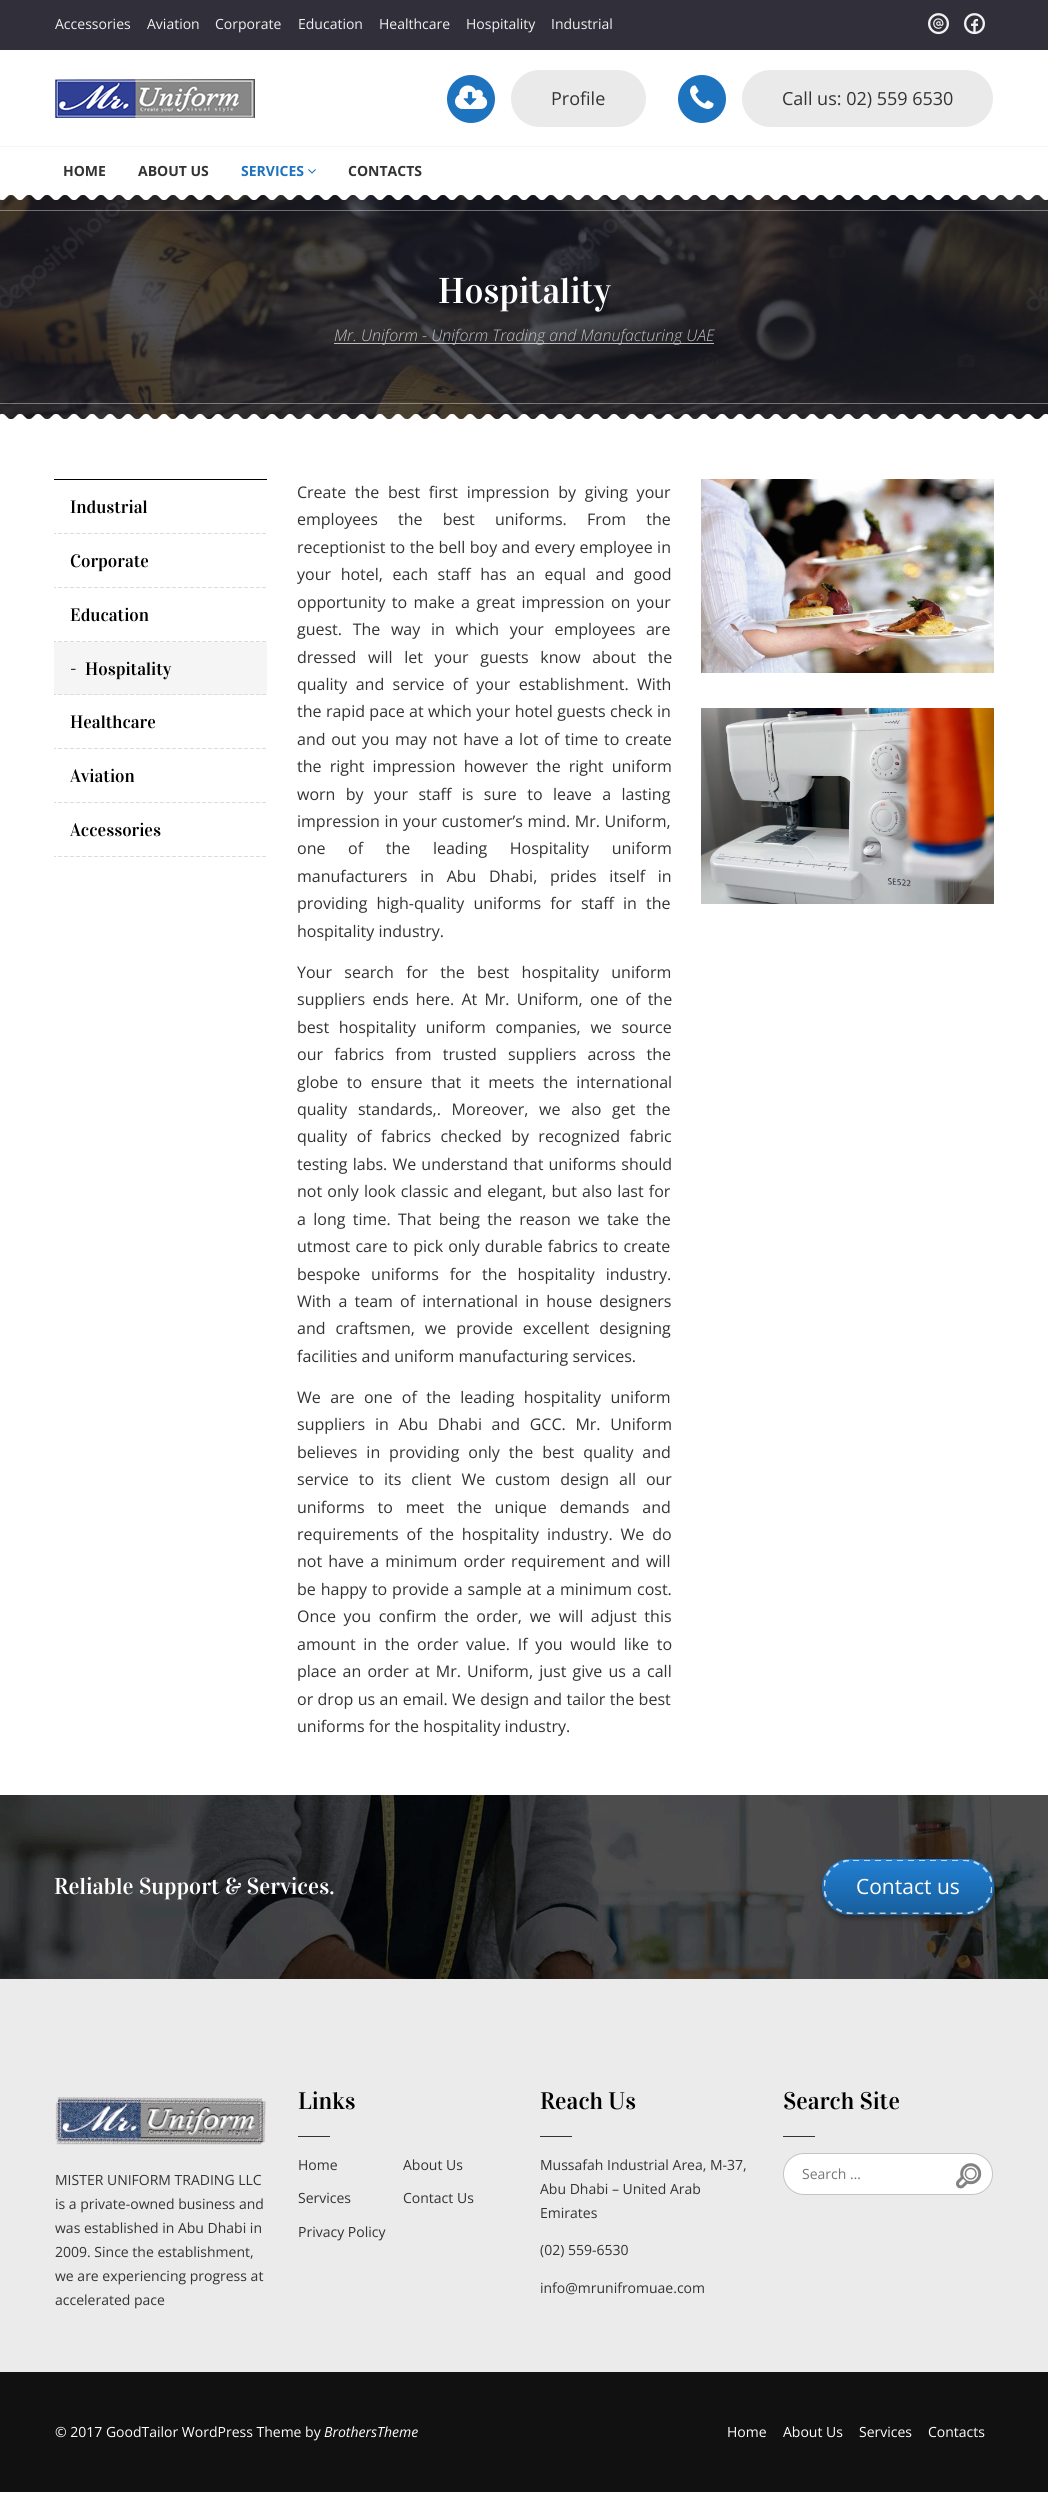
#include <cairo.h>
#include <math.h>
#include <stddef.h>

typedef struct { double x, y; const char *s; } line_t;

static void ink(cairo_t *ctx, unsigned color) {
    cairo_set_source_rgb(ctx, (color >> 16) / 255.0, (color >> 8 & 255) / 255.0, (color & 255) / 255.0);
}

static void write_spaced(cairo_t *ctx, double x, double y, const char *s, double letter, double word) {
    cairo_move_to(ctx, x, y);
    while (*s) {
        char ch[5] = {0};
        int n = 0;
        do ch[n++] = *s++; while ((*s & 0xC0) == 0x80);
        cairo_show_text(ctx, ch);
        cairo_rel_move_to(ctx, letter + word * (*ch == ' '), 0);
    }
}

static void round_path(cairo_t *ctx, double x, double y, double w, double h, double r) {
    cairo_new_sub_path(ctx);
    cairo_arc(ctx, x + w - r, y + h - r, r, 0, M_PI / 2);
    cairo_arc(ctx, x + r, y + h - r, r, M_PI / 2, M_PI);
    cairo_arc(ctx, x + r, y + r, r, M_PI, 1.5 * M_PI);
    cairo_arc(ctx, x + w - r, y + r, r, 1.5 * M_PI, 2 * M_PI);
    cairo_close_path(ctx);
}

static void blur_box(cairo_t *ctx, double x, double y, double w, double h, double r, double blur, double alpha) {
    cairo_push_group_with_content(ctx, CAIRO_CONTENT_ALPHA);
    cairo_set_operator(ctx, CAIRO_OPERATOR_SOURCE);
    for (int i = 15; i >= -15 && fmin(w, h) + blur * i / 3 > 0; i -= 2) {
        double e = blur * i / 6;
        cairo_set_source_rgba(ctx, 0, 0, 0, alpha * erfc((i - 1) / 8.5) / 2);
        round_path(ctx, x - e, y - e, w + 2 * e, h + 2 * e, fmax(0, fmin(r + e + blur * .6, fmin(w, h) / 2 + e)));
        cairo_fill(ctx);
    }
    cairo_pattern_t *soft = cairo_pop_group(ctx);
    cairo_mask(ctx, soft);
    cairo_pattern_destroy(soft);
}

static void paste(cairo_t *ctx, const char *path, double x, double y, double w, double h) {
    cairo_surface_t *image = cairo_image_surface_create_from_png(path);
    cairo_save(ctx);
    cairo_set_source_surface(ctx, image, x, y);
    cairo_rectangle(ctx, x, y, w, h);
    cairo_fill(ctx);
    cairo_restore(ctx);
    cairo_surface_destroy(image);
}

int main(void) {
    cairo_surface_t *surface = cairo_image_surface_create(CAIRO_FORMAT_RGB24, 1048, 2515);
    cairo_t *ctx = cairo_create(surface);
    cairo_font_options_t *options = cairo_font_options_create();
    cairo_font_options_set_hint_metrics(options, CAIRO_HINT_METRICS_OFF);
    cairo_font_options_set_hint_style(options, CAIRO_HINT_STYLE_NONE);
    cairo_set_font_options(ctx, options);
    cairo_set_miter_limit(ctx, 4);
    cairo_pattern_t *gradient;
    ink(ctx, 0xFFFFFF);
    cairo_paint(ctx);
    ink(ctx, 0x302F3A);
    cairo_rectangle(ctx, 0, 0, 1048, 50);
    cairo_fill(ctx);
    cairo_select_font_face(ctx, "Open Sans", CAIRO_FONT_SLANT_NORMAL, CAIRO_FONT_WEIGHT_NORMAL);
    cairo_set_font_size(ctx, 14);
    ink(ctx, 0xF2F2F2);
    {
        static const line_t items[] = {
            {55, 29, "Accessories"},
            {147, 29, "Aviation"},
            {215, 29, "Corporate"},
            {298, 29, "Education"},
            {379, 29, "Healthcare"},
            {466, 29, "Hospitality"},
            {551, 29, "Industrial"},
        };
        for (size_t i = 0; i < sizeof items / sizeof *items; i++) {
            cairo_move_to(ctx, items[i].x, items[i].y);
            cairo_show_text(ctx, items[i].s);
        }
    }
    paste(ctx, "media/1.png", 928, 13, 21, 22);
    paste(ctx, "media/2.png", 964, 13, 21, 22);
    ink(ctx, 0xF5F5F5);
    cairo_rectangle(ctx, 0, 146, 1048, 1);
    cairo_fill(ctx);
    paste(ctx, "media/3.png", 55, 79, 200, 39);
    ink(ctx, 0x1E73BE);
    cairo_arc(ctx, 471, 99, 24, 0, 2 * M_PI);
    cairo_fill(ctx);
    paste(ctx, "media/4.png", 455, 85, 33, 24);
    ink(ctx, 0xEAEAEA);
    round_path(ctx, 511, 70, 135, 57, 28.5);
    cairo_fill(ctx);
    cairo_set_font_size(ctx, 18);
    ink(ctx, 0x333333);
    cairo_move_to(ctx, 551, 105);
    cairo_show_text(ctx, "Profile");
    ink(ctx, 0x1E73BE);
    cairo_new_path(ctx);
    cairo_arc(ctx, 702, 99, 24, 0, 2 * M_PI);
    cairo_fill(ctx);
    paste(ctx, "media/5.png", 690, 85, 24, 24);
    ink(ctx, 0xEAEAEA);
    round_path(ctx, 742, 70, 251, 57, 28.5);
    cairo_fill(ctx);
    ink(ctx, 0x333333);
    cairo_move_to(ctx, 782, 105);
    cairo_show_text(ctx, "Call us: 02) 559 6530");
    cairo_select_font_face(ctx, "Open Sans", CAIRO_FONT_SLANT_NORMAL, CAIRO_FONT_WEIGHT_BOLD);
    cairo_set_font_size(ctx, 14);
    cairo_move_to(ctx, 63, 176);
    cairo_show_text(ctx, "HOME");
    cairo_move_to(ctx, 138, 176);
    cairo_show_text(ctx, "ABOUT US");
    ink(ctx, 0x1E73BE);
    cairo_move_to(ctx, 241, 176);
    cairo_show_text(ctx, "SERVICES");
    paste(ctx, "media/6.png", 308, 169, 8, 5);
    ink(ctx, 0x333333);
    cairo_move_to(ctx, 348, 176);
    cairo_show_text(ctx, "CONTACTS");
    paste(ctx, "media/7.png", 0, 195, 1048, 224);
    paste(ctx, "media/8.png", 0, 195, 1048, 5);
    cairo_set_source_rgba(ctx, 1, 1, 1, 0.38);
    cairo_rectangle(ctx, 0, 210, 1048, 1);
    cairo_fill(ctx);
    cairo_select_font_face(ctx, "Vidaloka", CAIRO_FONT_SLANT_NORMAL, CAIRO_FONT_WEIGHT_NORMAL);
    cairo_set_font_size(ctx, 36);
    ink(ctx, 0xFFFFFF);
    cairo_move_to(ctx, 438, 303);
    cairo_show_text(ctx, "Hospitality");
    cairo_set_source_rgba(ctx, 1, 1, 1, 0.7);
    cairo_rectangle(ctx, 334, 343, 380, 1);
    cairo_fill(ctx);
    cairo_select_font_face(ctx, "Open Sans Light", CAIRO_FONT_SLANT_ITALIC, CAIRO_FONT_WEIGHT_NORMAL);
    cairo_set_font_size(ctx, 16);
    ink(ctx, 0xC1C1C2);
    cairo_move_to(ctx, 334, 341);
    cairo_show_text(ctx, "Mr. Uniform - Uniform Trading and Manufacturing UAE");
    paste(ctx, "media/9.png", 0, 414, 1048, 5);
    cairo_set_source_rgba(ctx, 1, 1, 1, 0.38);
    cairo_rectangle(ctx, 0, 403, 1048, 1);
    cairo_fill(ctx);
    ink(ctx, 0x000000);
    cairo_rectangle(ctx, 54, 479, 213, 1);
    cairo_fill(ctx);
    paste(ctx, "media/10.png", 54, 533, 212, 1);
    cairo_select_font_face(ctx, "Vidaloka", CAIRO_FONT_SLANT_NORMAL, CAIRO_FONT_WEIGHT_NORMAL);
    cairo_set_font_size(ctx, 18);
    cairo_move_to(ctx, 70, 513);
    cairo_show_text(ctx, "Industrial");
    paste(ctx, "media/10.png", 54, 587, 212, 1);
    cairo_move_to(ctx, 70, 567);
    cairo_show_text(ctx, "Corporate");
    paste(ctx, "media/10.png", 54, 641, 212, 1);
    cairo_move_to(ctx, 70, 621);
    cairo_show_text(ctx, "Education");
    ink(ctx, 0xF5F5F5);
    cairo_rectangle(ctx, 54, 642, 213, 53);
    cairo_fill(ctx);
    paste(ctx, "media/11.png", 54, 694, 212, 1);
    ink(ctx, 0x000000);
    cairo_move_to(ctx, 70, 675);
    cairo_show_text(ctx, "-");
    cairo_move_to(ctx, 85, 675);
    cairo_show_text(ctx, "Hospitality");
    paste(ctx, "media/10.png", 54, 748, 212, 1);
    cairo_move_to(ctx, 70, 728);
    cairo_show_text(ctx, "Healthcare");
    paste(ctx, "media/10.png", 54, 802, 212, 1);
    cairo_move_to(ctx, 70, 782);
    cairo_show_text(ctx, "Aviation");
    paste(ctx, "media/10.png", 54, 856, 212, 1);
    cairo_move_to(ctx, 70, 836);
    cairo_show_text(ctx, "Accessories");
    cairo_select_font_face(ctx, "Open Sans", CAIRO_FONT_SLANT_NORMAL, CAIRO_FONT_WEIGHT_NORMAL);
    cairo_set_font_size(ctx, 16);
    ink(ctx, 0x333333);
    write_spaced(ctx, 297, 498, "Create the best first impression by giving your", 0, 4.5);
    write_spaced(ctx, 297, 525, "employees the best uniforms. From the", 0, 16);
    write_spaced(ctx, 297, 553, "receptionist to the bell boy and every employee in", 0, 0.25);
    write_spaced(ctx, 297, 580, "your hotel, each staff has an equal and good", 0, 5.5);
    write_spaced(ctx, 297, 608, "opportunity to make a great impression on your", 0, 2.25);
    write_spaced(ctx, 297, 635, "guest. The way in which your employees are", 0, 6.5);
    write_spaced(ctx, 297, 663, "dressed will let your guests know about the", 0, 7.5);
    write_spaced(ctx, 297, 690, "quality and service of your establishment. With", 0, 4.25);
    write_spaced(ctx, 297, 717, "the rapid pace at which your hotel guests check in", 0, 0.25);
    write_spaced(ctx, 297, 745, "and out you may not have a lot of time to create", 0, 1.5);
    write_spaced(ctx, 297, 772, "the right impression however the right uniform", 0, 4);
    write_spaced(ctx, 297, 800, "worn by your staff is sure to leave a lasting", 0, 6.25);
    write_spaced(ctx, 297, 827, "impression in your customer’s mind. Mr. Uniform,", 0, 0.5);
    write_spaced(ctx, 297, 854, "one of the leading Hospitality uniform", 0, 18.5);
    write_spaced(ctx, 297, 882, "manufacturers in Abu Dhabi, prides itself in", 0, 8.5);
    write_spaced(ctx, 297, 909, "providing high-quality uniforms for staff in the", 0, 5);
    cairo_move_to(ctx, 297, 937);
    cairo_show_text(ctx, "hospitality industry.");
    write_spaced(ctx, 297, 978, "Your search for the best hospitality uniform", 0, 8.25);
    write_spaced(ctx, 297, 1005, "suppliers ends here. At Mr. Uniform, one of the", 0, 3);
    write_spaced(ctx, 297, 1033, "best hospitality uniform companies, we source", 0, 5.5);
    write_spaced(ctx, 297, 1060, "our fabrics from trusted suppliers across the", 0, 7);
    write_spaced(ctx, 297, 1088, "globe to ensure that it meets the international", 0, 4.5);
    write_spaced(ctx, 297, 1115, "quality standards,. Moreover, we also get the", 0, 6.5);
    write_spaced(ctx, 297, 1142, "quality of fabrics checked by recognized fabric", 0, 5.25);
    write_spaced(ctx, 297, 1170, "testing labs. We understand that uniforms should", 0, 1);
    write_spaced(ctx, 297, 1197, "not only look classic and elegant, but also last for", 0, 1);
    write_spaced(ctx, 297, 1225, "a long time. That being the reason we take the", 0, 3.25);
    write_spaced(ctx, 297, 1252, "utmost care to pick only durable fabrics to create", 0, 1);
    write_spaced(ctx, 297, 1280, "bespoke uniforms for the hospitality industry.", 0, 6.75);
    write_spaced(ctx, 297, 1307, "With a team of international in house designers", 0, 3);
    write_spaced(ctx, 297, 1334, "and craftsmen, we provide excellent designing", 0, 5.75);
    cairo_move_to(ctx, 297, 1362);
    cairo_show_text(ctx, "facilities and uniform manufacturing services.");
    write_spaced(ctx, 297, 1403, "We are one of the leading hospitality uniform", 0, 5.25);
    write_spaced(ctx, 297, 1430, "suppliers in Abu Dhabi and GCC. Mr. Uniform", 0, 5.5);
    write_spaced(ctx, 297, 1458, "believes in providing only the best quality and", 0, 4.75);
    write_spaced(ctx, 297, 1485, "service to its client We custom design all our", 0, 5.75);
    write_spaced(ctx, 297, 1513, "uniforms to meet the unique demands and", 0, 8.75);
    write_spaced(ctx, 297, 1540, "requirements of the hospitality industry. We do", 0, 3.75);
    write_spaced(ctx, 297, 1567, "not have a minimum order requirement and will", 0, 2);
    write_spaced(ctx, 297, 1595, "be happy to provide a sample at a minimum cost.", 0, 0.75);
    write_spaced(ctx, 297, 1622, "Once you confirm the order, we will adjust this", 0, 3.5);
    write_spaced(ctx, 297, 1650, "amount in the order value. If you would like to", 0, 3.5);
    write_spaced(ctx, 297, 1677, "place an order at Mr. Uniform, just give us a call", 0, 2);
    write_spaced(ctx, 297, 1705, "or drop us an email. We design and tailor the best", 0, 0.25);
    cairo_move_to(ctx, 297, 1732);
    cairo_show_text(ctx, "uniforms for the hospitality industry.");
    paste(ctx, "media/12.png", 701, 479, 293, 194);
    paste(ctx, "media/13.png", 701, 708, 293, 196);
    paste(ctx, "media/14.png", 0, 1795, 1048, 184);
    cairo_select_font_face(ctx, "Vidaloka", CAIRO_FONT_SLANT_NORMAL, CAIRO_FONT_WEIGHT_NORMAL);
    cairo_set_font_size(ctx, 23);
    ink(ctx, 0xFFFFFF);
    cairo_move_to(ctx, 54, 1894);
    cairo_show_text(ctx, "Reliable Support & Services.");
    ink(ctx, 0x000000);
    blur_box(ctx, 822, 1863, 172, 56, 28, 2, 0.25);
    gradient = cairo_pattern_create_linear(908, 1803, 908, 1915);
    cairo_pattern_add_color_stop_rgba(gradient, 0, 0.129, 0.502, 0.831, 1);
    cairo_pattern_add_color_stop_rgba(gradient, 0.5, 0.129, 0.502, 0.831, 1);
    cairo_pattern_add_color_stop_rgba(gradient, 1, 0.094, 0.369, 0.608, 1);
    cairo_set_source(ctx, gradient);
    cairo_pattern_destroy(gradient);
    round_path(ctx, 822, 1859, 172, 56, 28);
    cairo_fill(ctx);
    cairo_save(ctx);
    cairo_rectangle(ctx, 824, 1860, 168, 54);
    cairo_clip(ctx);
    cairo_new_path(ctx);
    cairo_move_to(ctx, 853, 1860);
    cairo_line_to(ctx, 963, 1860);
    cairo_curve_to(ctx, 979, 1860, 992, 1872, 992, 1887);
    cairo_curve_to(ctx, 992, 1901.5, 979, 1913.5, 963, 1913.5);
    cairo_line_to(ctx, 853, 1913.5);
    cairo_curve_to(ctx, 837, 1913.5, 824, 1901.5, 824, 1887);
    cairo_curve_to(ctx, 824, 1872, 837, 1860, 853, 1860);
    cairo_close_path(ctx);
    cairo_set_source_rgba(ctx, 1, 1, 1, 0.7);
    cairo_set_dash(ctx, (double[]){6, 5}, 2, 0);
    cairo_stroke(ctx);
    cairo_restore(ctx);
    cairo_select_font_face(ctx, "Open Sans", CAIRO_FONT_SLANT_NORMAL, CAIRO_FONT_WEIGHT_NORMAL);
    cairo_set_font_size(ctx, 21);
    ink(ctx, 0xFFFFFF);
    cairo_move_to(ctx, 856, 1894);
    cairo_show_text(ctx, "Contact us");
    ink(ctx, 0xEBEBEB);
    cairo_rectangle(ctx, 0, 1979, 1048, 393);
    cairo_fill(ctx);
    paste(ctx, "media/15.png", 55, 2097, 211, 48);
    cairo_set_font_size(ctx, 14);
    ink(ctx, 0x333333);
    {
        static const line_t items[] = {
            {55, 2185, "MISTER UNIFORM TRADING LLC"},
            {55, 2209, "is a private-owned business and"},
            {55, 2233, "was established in Abu Dhabi in"},
            {55, 2257, "2009. Since the establishment,"},
            {55, 2281, "we are experiencing progress at"},
            {55, 2305, "accelerated pace"},
        };
        for (size_t i = 0; i < sizeof items / sizeof *items; i++) {
            cairo_move_to(ctx, items[i].x, items[i].y);
            cairo_show_text(ctx, items[i].s);
        }
    }
    cairo_select_font_face(ctx, "Vidaloka", CAIRO_FONT_SLANT_NORMAL, CAIRO_FONT_WEIGHT_NORMAL);
    cairo_set_font_size(ctx, 24);
    ink(ctx, 0x000000);
    cairo_move_to(ctx, 298, 2109);
    cairo_show_text(ctx, "Links");
    ink(ctx, 0x333333);
    cairo_rectangle(ctx, 298, 2136, 32, 1);
    cairo_fill(ctx);
    cairo_select_font_face(ctx, "Open Sans", CAIRO_FONT_SLANT_NORMAL, CAIRO_FONT_WEIGHT_NORMAL);
    cairo_set_font_size(ctx, 14);
    {
        static const line_t items[] = {
            {298, 2170, "Home"},
            {403, 2170, "About Us"},
            {298, 2203, "Services"},
            {403, 2203, "Contact Us"},
            {298, 2237, "Privacy Policy"},
        };
        for (size_t i = 0; i < sizeof items / sizeof *items; i++) {
            cairo_move_to(ctx, items[i].x, items[i].y);
            cairo_show_text(ctx, items[i].s);
        }
    }
    cairo_select_font_face(ctx, "Vidaloka", CAIRO_FONT_SLANT_NORMAL, CAIRO_FONT_WEIGHT_NORMAL);
    cairo_set_font_size(ctx, 24);
    ink(ctx, 0x000000);
    cairo_move_to(ctx, 540, 2109);
    cairo_show_text(ctx, "Reach Us");
    ink(ctx, 0x333333);
    cairo_rectangle(ctx, 540, 2136, 32, 1);
    cairo_fill(ctx);
    cairo_select_font_face(ctx, "Open Sans", CAIRO_FONT_SLANT_NORMAL, CAIRO_FONT_WEIGHT_NORMAL);
    cairo_set_font_size(ctx, 14);
    {
        static const line_t items[] = {
            {540, 2170, "Mussafah Industrial Area, M-37,"},
            {540, 2194, "Abu Dhabi – United Arab"},
            {540, 2218, "Emirates"},
            {540, 2255, "(02) 559-6530"},
            {540, 2293, "info@mrunifromuae.com"},
        };
        for (size_t i = 0; i < sizeof items / sizeof *items; i++) {
            cairo_move_to(ctx, items[i].x, items[i].y);
            cairo_show_text(ctx, items[i].s);
        }
    }
    cairo_select_font_face(ctx, "Vidaloka", CAIRO_FONT_SLANT_NORMAL, CAIRO_FONT_WEIGHT_NORMAL);
    cairo_set_font_size(ctx, 24);
    ink(ctx, 0x000000);
    cairo_move_to(ctx, 783, 2109);
    cairo_show_text(ctx, "Search Site");
    ink(ctx, 0x333333);
    cairo_rectangle(ctx, 783, 2136, 32, 1);
    cairo_fill(ctx);
    ink(ctx, 0xFFFFFF);
    round_path(ctx, 783.5, 2153.5, 209, 41, 20.5);
    cairo_fill_preserve(ctx);
    ink(ctx, 0xC4C4C4);
    cairo_set_line_width(ctx, 1);
    cairo_stroke(ctx);
    cairo_select_font_face(ctx, "Open Sans", CAIRO_FONT_SLANT_NORMAL, CAIRO_FONT_WEIGHT_NORMAL);
    cairo_set_font_size(ctx, 14);
    ink(ctx, 0x757575);
    cairo_move_to(ctx, 802, 2179);
    cairo_show_text(ctx, "Search …");
    paste(ctx, "media/16.png", 956, 2163, 26, 26);
    ink(ctx, 0x111111);
    cairo_rectangle(ctx, 0, 2372, 1048, 120);
    cairo_fill(ctx);
    ink(ctx, 0xFFFFFF);
    cairo_move_to(ctx, 55, 2437);
    cairo_show_text(ctx, "© 2017 GoodTailor WordPress Theme by");
    cairo_select_font_face(ctx, "Open Sans", CAIRO_FONT_SLANT_ITALIC, CAIRO_FONT_WEIGHT_NORMAL);
    cairo_move_to(ctx, 324, 2437);
    cairo_show_text(ctx, "BrothersTheme");
    cairo_select_font_face(ctx, "Open Sans", CAIRO_FONT_SLANT_NORMAL, CAIRO_FONT_WEIGHT_NORMAL);
    {
        static const line_t items[] = {
            {727, 2437, "Home"},
            {783, 2437, "About Us"},
            {859, 2437, "Services"},
            {928, 2437, "Contacts"},
        };
        for (size_t i = 0; i < sizeof items / sizeof *items; i++) {
            cairo_move_to(ctx, items[i].x, items[i].y);
            cairo_show_text(ctx, items[i].s);
        }
    }
    cairo_surface_write_to_png(surface, "image.png");
    cairo_font_options_destroy(options);
    cairo_destroy(ctx);
    cairo_surface_destroy(surface);
    return 0;
}
